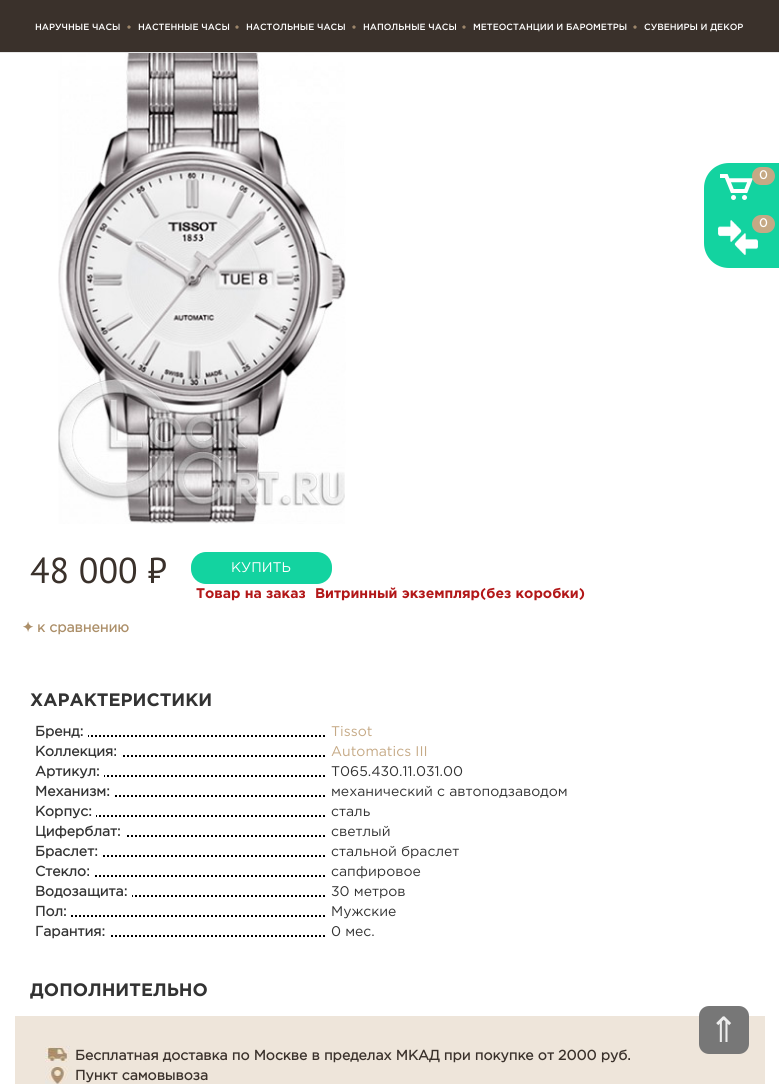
#include <cairo.h>
#include <math.h>
#include <stddef.h>


static void ink(cairo_t *ctx, unsigned color) {
    cairo_set_source_rgb(ctx, (color >> 16) / 255.0, (color >> 8 & 255) / 255.0, (color & 255) / 255.0);
}

static void round_path(cairo_t *ctx, double x, double y, double w, double h, double r) {
    cairo_new_sub_path(ctx);
    cairo_arc(ctx, x + w - r, y + h - r, r, 0, M_PI / 2);
    cairo_arc(ctx, x + r, y + h - r, r, M_PI / 2, M_PI);
    cairo_arc(ctx, x + r, y + r, r, M_PI, 1.5 * M_PI);
    cairo_arc(ctx, x + w - r, y + r, r, 1.5 * M_PI, 2 * M_PI);
    cairo_close_path(ctx);
}

static void paste(cairo_t *ctx, const char *path, double x, double y, double w, double h) {
    cairo_surface_t *image = cairo_image_surface_create_from_png(path);
    cairo_save(ctx);
    cairo_set_source_surface(ctx, image, x, y);
    cairo_rectangle(ctx, x, y, w, h);
    cairo_fill(ctx);
    cairo_restore(ctx);
    cairo_surface_destroy(image);
}

int main(void) {
    cairo_surface_t *surface = cairo_image_surface_create(CAIRO_FORMAT_RGB24, 779, 1084);
    cairo_t *ctx = cairo_create(surface);
    cairo_font_options_t *options = cairo_font_options_create();
    cairo_font_options_set_hint_metrics(options, CAIRO_HINT_METRICS_OFF);
    cairo_font_options_set_hint_style(options, CAIRO_HINT_STYLE_NONE);
    cairo_set_font_options(ctx, options);
    cairo_set_miter_limit(ctx, 4);
    ink(ctx, 0xFFFFFF);
    cairo_paint(ctx);
    ink(ctx, 0x3A312B);
    cairo_rectangle(ctx, 0, 0, 779, 52);
    cairo_fill(ctx);
    ink(ctx, 0xE7E7E7);
    cairo_rectangle(ctx, 0, 52, 779, 1);
    cairo_fill(ctx);
    cairo_select_font_face(ctx, "Gotham Medium", CAIRO_FONT_SLANT_NORMAL, CAIRO_FONT_WEIGHT_NORMAL);
    cairo_set_font_size(ctx, 9);
    ink(ctx, 0xFFFFFF);
    cairo_move_to(ctx, 35, 30);
    cairo_show_text(ctx, "НАРУЧНЫЕ ЧАСЫ");
    paste(ctx, "media/1.png", 127, 24, 4, 5);
    cairo_move_to(ctx, 138, 30);
    cairo_show_text(ctx, "НАСТЕННЫЕ ЧАСЫ");
    paste(ctx, "media/1.png", 235, 24, 4, 5);
    cairo_move_to(ctx, 246, 30);
    cairo_show_text(ctx, "НАСТОЛЬНЫЕ ЧАСЫ");
    paste(ctx, "media/1.png", 352, 24, 4, 5);
    cairo_move_to(ctx, 363, 30);
    cairo_show_text(ctx, "НАПОЛЬНЫЕ ЧАСЫ");
    paste(ctx, "media/1.png", 462, 24, 4, 5);
    cairo_move_to(ctx, 473, 30);
    cairo_show_text(ctx, "МЕТЕОСТАНЦИИ И БАРОМЕТРЫ");
    paste(ctx, "media/1.png", 633, 24, 4, 5);
    cairo_move_to(ctx, 644, 30);
    cairo_show_text(ctx, "СУВЕНИРЫ И ДЕКОР");
    ink(ctx, 0x13D3A0);
    cairo_new_path(ctx);
    cairo_move_to(ctx, 729, 163);
    cairo_line_to(ctx, 779, 163);
    cairo_line_to(ctx, 779, 268);
    cairo_line_to(ctx, 729, 268);
    cairo_curve_to(ctx, 715, 268, 704, 257, 704, 243);
    cairo_line_to(ctx, 704, 188);
    cairo_curve_to(ctx, 704, 174, 715, 163, 729, 163);
    cairo_close_path(ctx);
    cairo_fill(ctx);
    paste(ctx, "media/2.png", 720, 174, 33, 26);
    ink(ctx, 0xC5A985);
    round_path(ctx, 752, 167, 23, 18, 9);
    cairo_fill(ctx);
    cairo_select_font_face(ctx, "Gotham", CAIRO_FONT_SLANT_NORMAL, CAIRO_FONT_WEIGHT_BOLD);
    cairo_set_font_size(ctx, 12);
    ink(ctx, 0xFFFFFF);
    cairo_move_to(ctx, 759, 179);
    cairo_show_text(ctx, "0");
    paste(ctx, "media/3.png", 718, 220, 40, 35);
    ink(ctx, 0xC5A985);
    round_path(ctx, 752, 215, 23, 18, 9);
    cairo_fill(ctx);
    ink(ctx, 0xFFFFFF);
    cairo_move_to(ctx, 759, 227);
    cairo_show_text(ctx, "0");
    paste(ctx, "media/4.png", 58, 53, 288, 471);
    cairo_select_font_face(ctx, "PT Sans", CAIRO_FONT_SLANT_NORMAL, CAIRO_FONT_WEIGHT_NORMAL);
    cairo_set_font_size(ctx, 36);
    ink(ctx, 0x3A312B);
    cairo_move_to(ctx, 30, 583);
    cairo_show_text(ctx, "48 000 ₽");
    ink(ctx, 0x13D3A0);
    round_path(ctx, 191, 552, 141, 32, 15);
    cairo_fill(ctx);
    cairo_select_font_face(ctx, "Gotham", CAIRO_FONT_SLANT_NORMAL, CAIRO_FONT_WEIGHT_NORMAL);
    cairo_set_font_size(ctx, 14);
    ink(ctx, 0xFFFFFF);
    cairo_move_to(ctx, 231, 572);
    cairo_show_text(ctx, "КУПИТЬ");
    cairo_select_font_face(ctx, "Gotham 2", CAIRO_FONT_SLANT_NORMAL, CAIRO_FONT_WEIGHT_BOLD);
    ink(ctx, 0xB21718);
    cairo_move_to(ctx, 196, 598);
    cairo_show_text(ctx, "Товар на заказ");
    cairo_move_to(ctx, 315, 598);
    cairo_show_text(ctx, "Витринный экземпляр(без коробки)");
    cairo_select_font_face(ctx, "DejaVu Sans", CAIRO_FONT_SLANT_NORMAL, CAIRO_FONT_WEIGHT_BOLD);
    ink(ctx, 0xAC8F69);
    cairo_move_to(ctx, 22, 632);
    cairo_show_text(ctx, "✦");
    cairo_select_font_face(ctx, "Gotham", CAIRO_FONT_SLANT_NORMAL, CAIRO_FONT_WEIGHT_BOLD);
    cairo_move_to(ctx, 37, 632);
    cairo_show_text(ctx, "к сравнению");
    cairo_select_font_face(ctx, "Gotham 2", CAIRO_FONT_SLANT_NORMAL, CAIRO_FONT_WEIGHT_BOLD);
    cairo_set_font_size(ctx, 18);
    ink(ctx, 0x333333);
    cairo_move_to(ctx, 30, 706);
    cairo_show_text(ctx, "ХАРАКТЕРИСТИКИ");
    paste(ctx, "media/5.png", 88, 735, 237, 2);
    cairo_select_font_face(ctx, "Gotham", CAIRO_FONT_SLANT_NORMAL, CAIRO_FONT_WEIGHT_BOLD);
    cairo_set_font_size(ctx, 14);
    cairo_move_to(ctx, 35, 736);
    cairo_show_text(ctx, "Бренд:");
    cairo_select_font_face(ctx, "Gotham", CAIRO_FONT_SLANT_NORMAL, CAIRO_FONT_WEIGHT_NORMAL);
    ink(ctx, 0xC5A985);
    cairo_move_to(ctx, 331, 736);
    cairo_show_text(ctx, "Tissot");
    paste(ctx, "media/6.png", 121, 755, 204, 2);
    cairo_select_font_face(ctx, "Gotham", CAIRO_FONT_SLANT_NORMAL, CAIRO_FONT_WEIGHT_BOLD);
    ink(ctx, 0x333333);
    cairo_move_to(ctx, 35, 756);
    cairo_show_text(ctx, "Коллекция:");
    cairo_select_font_face(ctx, "Gotham", CAIRO_FONT_SLANT_NORMAL, CAIRO_FONT_WEIGHT_NORMAL);
    ink(ctx, 0xC5A985);
    cairo_move_to(ctx, 331, 756);
    cairo_show_text(ctx, "Automatics III");
    paste(ctx, "media/7.png", 104, 775, 221, 2);
    cairo_select_font_face(ctx, "Gotham", CAIRO_FONT_SLANT_NORMAL, CAIRO_FONT_WEIGHT_BOLD);
    ink(ctx, 0x333333);
    cairo_move_to(ctx, 35, 776);
    cairo_show_text(ctx, "Артикул:");
    cairo_select_font_face(ctx, "Gotham", CAIRO_FONT_SLANT_NORMAL, CAIRO_FONT_WEIGHT_NORMAL);
    cairo_move_to(ctx, 331, 776);
    cairo_show_text(ctx, "T065.430.11.031.00");
    paste(ctx, "media/8.png", 114, 795, 211, 2);
    cairo_select_font_face(ctx, "Gotham", CAIRO_FONT_SLANT_NORMAL, CAIRO_FONT_WEIGHT_BOLD);
    cairo_move_to(ctx, 35, 796);
    cairo_show_text(ctx, "Механизм:");
    cairo_select_font_face(ctx, "Gotham", CAIRO_FONT_SLANT_NORMAL, CAIRO_FONT_WEIGHT_NORMAL);
    cairo_move_to(ctx, 331, 796);
    cairo_show_text(ctx, "механический с автоподзаводом");
    paste(ctx, "media/9.png", 96, 815, 229, 2);
    cairo_select_font_face(ctx, "Gotham", CAIRO_FONT_SLANT_NORMAL, CAIRO_FONT_WEIGHT_BOLD);
    cairo_move_to(ctx, 35, 816);
    cairo_show_text(ctx, "Корпус:");
    cairo_select_font_face(ctx, "Gotham", CAIRO_FONT_SLANT_NORMAL, CAIRO_FONT_WEIGHT_NORMAL);
    cairo_move_to(ctx, 331, 816);
    cairo_show_text(ctx, "сталь");
    paste(ctx, "media/10.png", 125, 835, 200, 2);
    cairo_select_font_face(ctx, "Gotham", CAIRO_FONT_SLANT_NORMAL, CAIRO_FONT_WEIGHT_BOLD);
    cairo_move_to(ctx, 35, 836);
    cairo_show_text(ctx, "Циферблат:");
    cairo_select_font_face(ctx, "Gotham", CAIRO_FONT_SLANT_NORMAL, CAIRO_FONT_WEIGHT_NORMAL);
    cairo_move_to(ctx, 331, 836);
    cairo_show_text(ctx, "светлый");
    paste(ctx, "media/11.png", 102, 855, 223, 2);
    cairo_select_font_face(ctx, "Gotham", CAIRO_FONT_SLANT_NORMAL, CAIRO_FONT_WEIGHT_BOLD);
    cairo_move_to(ctx, 35, 856);
    cairo_show_text(ctx, "Браслет:");
    cairo_select_font_face(ctx, "Gotham", CAIRO_FONT_SLANT_NORMAL, CAIRO_FONT_WEIGHT_NORMAL);
    cairo_move_to(ctx, 331, 856);
    cairo_show_text(ctx, "стальной браслет");
    paste(ctx, "media/12.png", 94, 875, 231, 2);
    cairo_select_font_face(ctx, "Gotham", CAIRO_FONT_SLANT_NORMAL, CAIRO_FONT_WEIGHT_BOLD);
    cairo_move_to(ctx, 35, 876);
    cairo_show_text(ctx, "Стекло:");
    cairo_select_font_face(ctx, "Gotham", CAIRO_FONT_SLANT_NORMAL, CAIRO_FONT_WEIGHT_NORMAL);
    cairo_move_to(ctx, 331, 876);
    cairo_show_text(ctx, "сапфировое");
    paste(ctx, "media/13.png", 132, 895, 193, 2);
    cairo_select_font_face(ctx, "Gotham", CAIRO_FONT_SLANT_NORMAL, CAIRO_FONT_WEIGHT_BOLD);
    cairo_move_to(ctx, 35, 896);
    cairo_show_text(ctx, "Водозащита:");
    cairo_select_font_face(ctx, "Gotham", CAIRO_FONT_SLANT_NORMAL, CAIRO_FONT_WEIGHT_NORMAL);
    cairo_move_to(ctx, 331, 896);
    cairo_show_text(ctx, "30 метров");
    paste(ctx, "media/14.png", 71, 915, 254, 2);
    cairo_select_font_face(ctx, "Gotham", CAIRO_FONT_SLANT_NORMAL, CAIRO_FONT_WEIGHT_BOLD);
    cairo_move_to(ctx, 35, 916);
    cairo_show_text(ctx, "Пол:");
    cairo_select_font_face(ctx, "Gotham", CAIRO_FONT_SLANT_NORMAL, CAIRO_FONT_WEIGHT_NORMAL);
    cairo_move_to(ctx, 331, 916);
    cairo_show_text(ctx, "Мужские");
    paste(ctx, "media/15.png", 110, 935, 215, 2);
    cairo_select_font_face(ctx, "Gotham", CAIRO_FONT_SLANT_NORMAL, CAIRO_FONT_WEIGHT_BOLD);
    cairo_move_to(ctx, 35, 936);
    cairo_show_text(ctx, "Гарантия:");
    cairo_select_font_face(ctx, "Gotham", CAIRO_FONT_SLANT_NORMAL, CAIRO_FONT_WEIGHT_NORMAL);
    cairo_move_to(ctx, 331, 936);
    cairo_show_text(ctx, "0 мес.");
    cairo_select_font_face(ctx, "Gotham 2", CAIRO_FONT_SLANT_NORMAL, CAIRO_FONT_WEIGHT_BOLD);
    cairo_set_font_size(ctx, 18);
    cairo_move_to(ctx, 30, 996);
    cairo_show_text(ctx, "ДОПОЛНИТЕЛЬНО");
    ink(ctx, 0xEEE5DA);
    cairo_rectangle(ctx, 15, 1016, 750, 68);
    cairo_fill(ctx);
    paste(ctx, "media/16.png", 45, 1046, 25, 17);
    cairo_select_font_face(ctx, "Gotham", CAIRO_FONT_SLANT_NORMAL, CAIRO_FONT_WEIGHT_BOLD);
    cairo_set_font_size(ctx, 14);
    ink(ctx, 0x3A312B);
    cairo_move_to(ctx, 75, 1060);
    cairo_show_text(ctx, "Бесплатная доставка по Москве в пределах МКАД при покупке от 2000 руб.");
    paste(ctx, "media/17.png", 45, 1066, 27, 18);
    cairo_move_to(ctx, 75, 1080);
    cairo_show_text(ctx, "Пункт самовывоза");
    ink(ctx, 0x777777);
    round_path(ctx, 699, 1006, 50, 48, 10);
    cairo_fill(ctx);
    cairo_select_font_face(ctx, "DejaVu Sans", CAIRO_FONT_SLANT_NORMAL, CAIRO_FONT_WEIGHT_NORMAL);
    cairo_set_font_size(ctx, 35);
    ink(ctx, 0xEEEEEE);
    cairo_move_to(ctx, 709, 1042);
    cairo_show_text(ctx, "⇑");
    cairo_surface_write_to_png(surface, "image.png");
    cairo_font_options_destroy(options);
    cairo_destroy(ctx);
    cairo_surface_destroy(surface);
    return 0;
}
